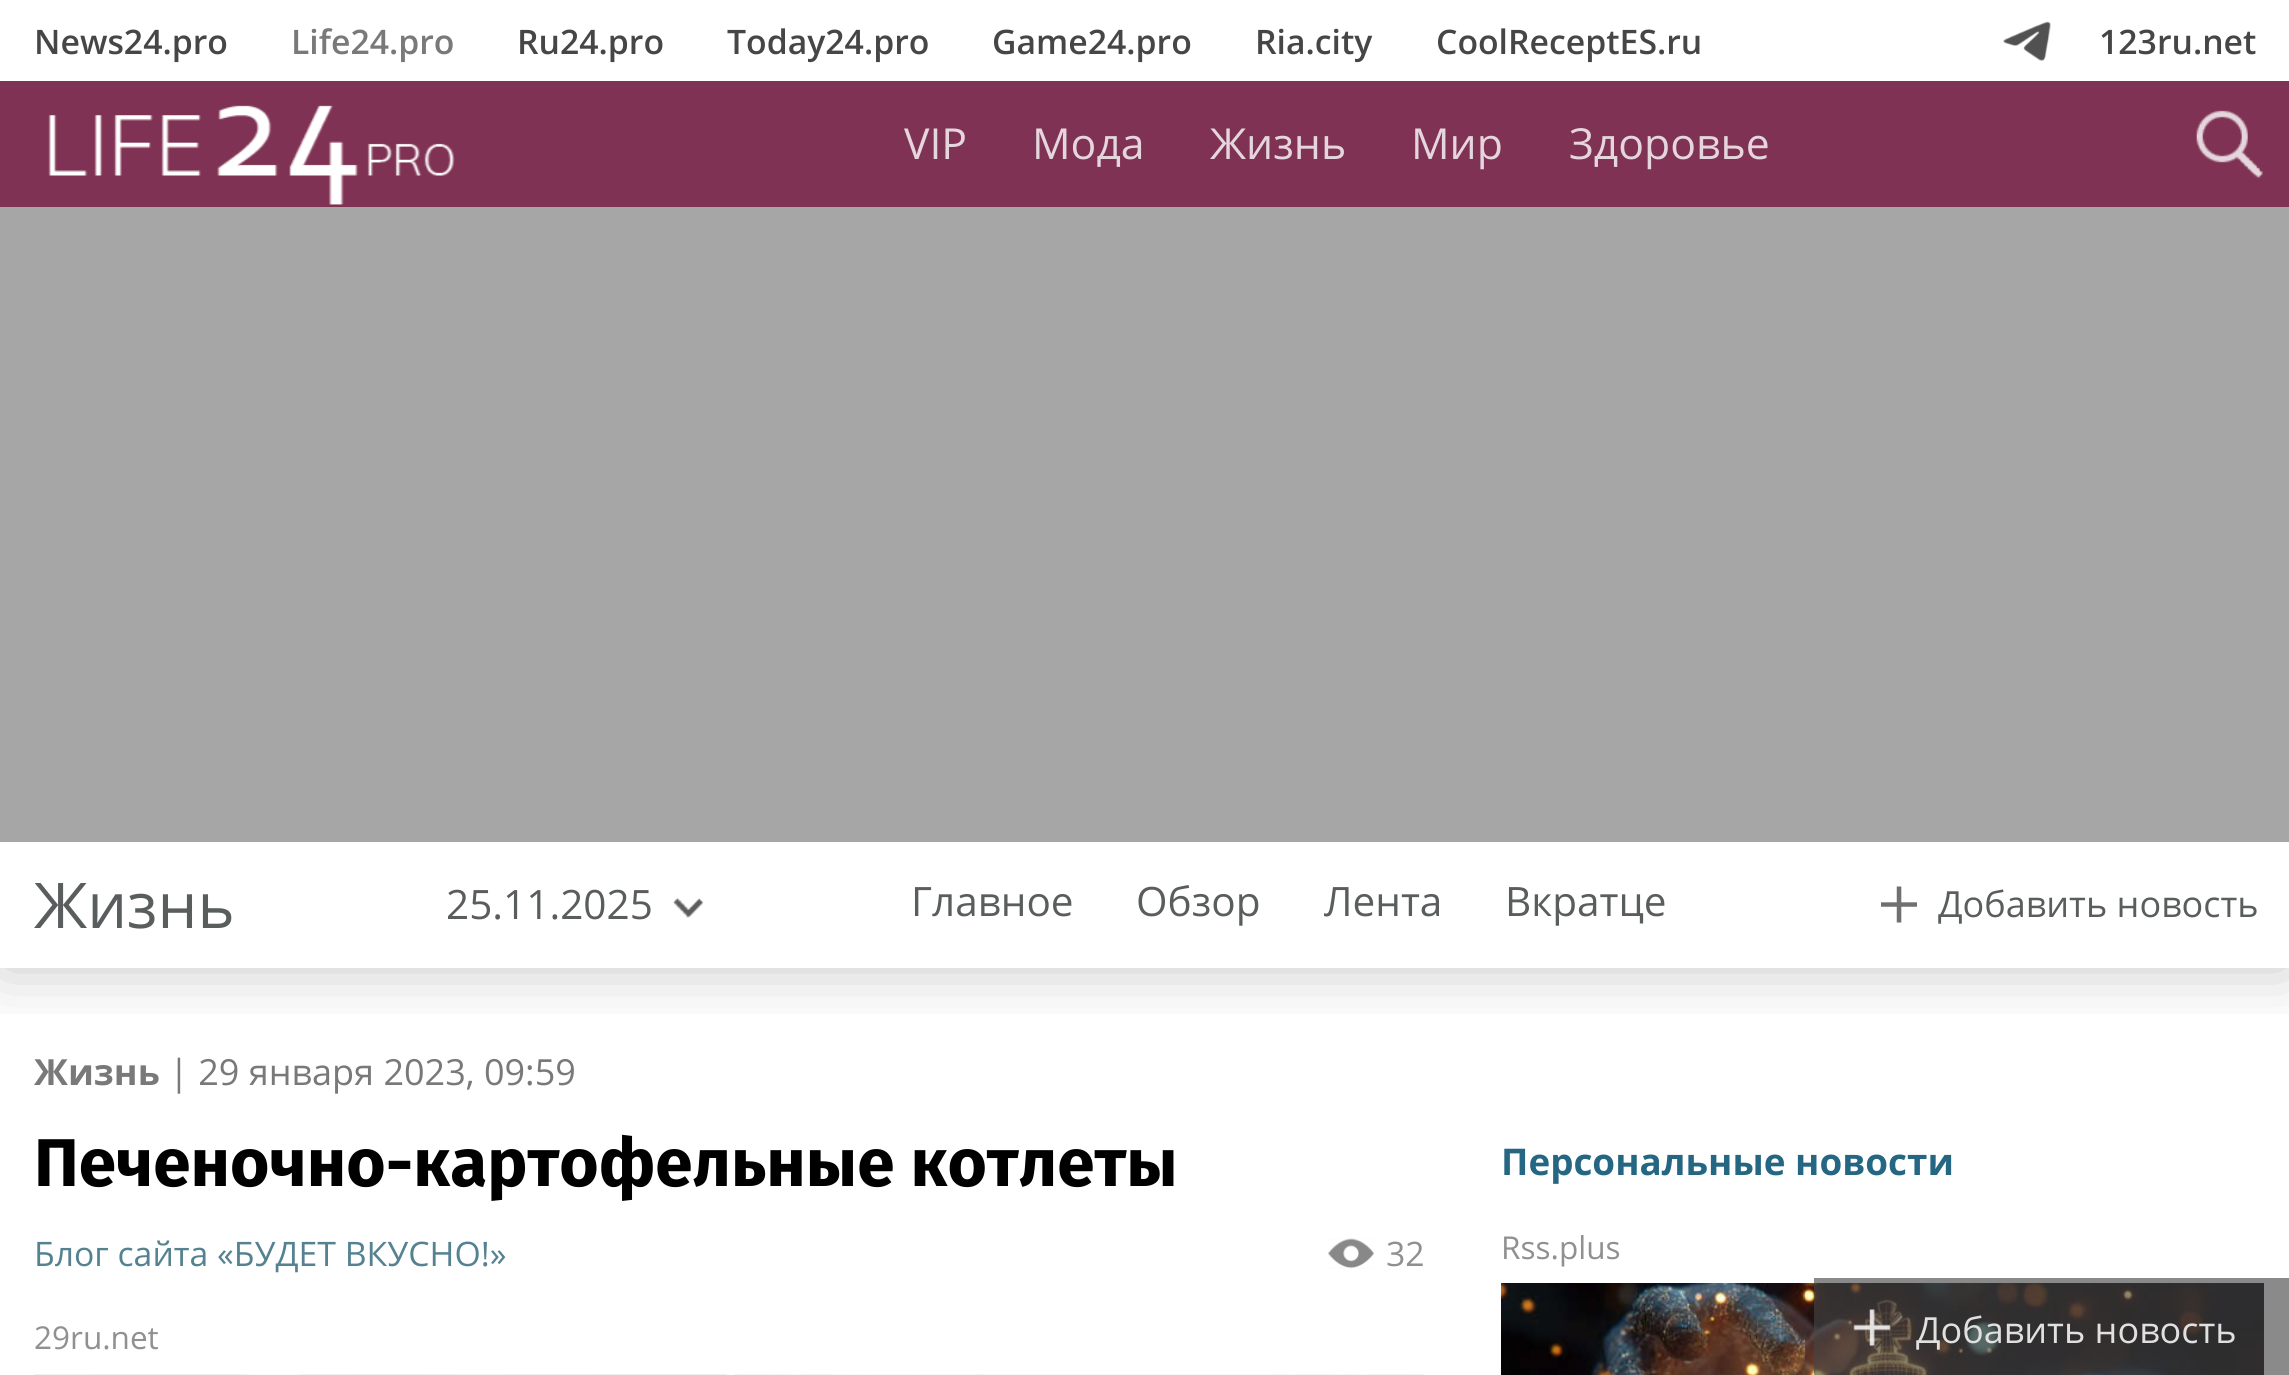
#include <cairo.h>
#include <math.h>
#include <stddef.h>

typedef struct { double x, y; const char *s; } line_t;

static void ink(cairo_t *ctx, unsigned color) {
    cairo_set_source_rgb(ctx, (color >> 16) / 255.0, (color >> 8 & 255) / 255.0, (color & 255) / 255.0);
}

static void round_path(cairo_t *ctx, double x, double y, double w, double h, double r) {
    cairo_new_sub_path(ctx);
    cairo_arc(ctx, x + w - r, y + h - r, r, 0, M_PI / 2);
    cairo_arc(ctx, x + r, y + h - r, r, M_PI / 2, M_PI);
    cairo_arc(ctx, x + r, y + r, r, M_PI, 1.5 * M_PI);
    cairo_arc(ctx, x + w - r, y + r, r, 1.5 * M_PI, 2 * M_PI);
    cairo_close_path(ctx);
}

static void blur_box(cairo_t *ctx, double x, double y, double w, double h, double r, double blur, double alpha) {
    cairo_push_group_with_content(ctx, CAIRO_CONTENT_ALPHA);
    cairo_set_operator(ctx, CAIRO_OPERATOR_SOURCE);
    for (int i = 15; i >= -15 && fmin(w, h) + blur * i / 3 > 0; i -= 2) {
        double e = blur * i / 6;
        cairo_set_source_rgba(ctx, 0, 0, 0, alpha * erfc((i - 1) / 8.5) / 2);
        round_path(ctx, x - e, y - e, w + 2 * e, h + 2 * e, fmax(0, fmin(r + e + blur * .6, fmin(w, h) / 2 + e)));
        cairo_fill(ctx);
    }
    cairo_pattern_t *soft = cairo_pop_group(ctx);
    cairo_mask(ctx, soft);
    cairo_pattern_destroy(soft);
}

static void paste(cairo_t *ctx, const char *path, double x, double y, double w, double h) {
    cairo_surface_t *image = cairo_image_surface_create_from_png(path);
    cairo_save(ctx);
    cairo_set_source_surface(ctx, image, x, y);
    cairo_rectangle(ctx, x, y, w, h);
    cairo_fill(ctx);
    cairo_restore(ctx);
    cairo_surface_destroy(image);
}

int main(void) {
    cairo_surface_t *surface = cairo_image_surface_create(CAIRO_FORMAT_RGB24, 2289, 1375);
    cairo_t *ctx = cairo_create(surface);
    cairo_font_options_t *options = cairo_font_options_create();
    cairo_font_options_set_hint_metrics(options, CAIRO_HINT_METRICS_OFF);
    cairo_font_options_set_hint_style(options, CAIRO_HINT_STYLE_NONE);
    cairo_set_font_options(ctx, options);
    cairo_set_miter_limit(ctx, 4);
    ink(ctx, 0xFFFFFF);
    cairo_paint(ctx);
    cairo_save(ctx);
    cairo_rectangle(ctx, 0, 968, 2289, 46);
    cairo_clip(ctx);
    ink(ctx, 0x000000);
    blur_box(ctx, 0, 0, 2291, 968, 0, 34, 0.23);
    cairo_restore(ctx);
    cairo_select_font_face(ctx, "Open Sans SemiBold", CAIRO_FONT_SLANT_NORMAL, CAIRO_FONT_WEIGHT_NORMAL);
    cairo_set_font_size(ctx, 33.75);
    ink(ctx, 0x464646);
    cairo_move_to(ctx, 34, 54);
    cairo_show_text(ctx, "News24.pro");
    ink(ctx, 0x797979);
    cairo_move_to(ctx, 291, 54);
    cairo_show_text(ctx, "Life24.pro");
    ink(ctx, 0x464646);
    {
        static const line_t items[] = {
            {517, 54, "Ru24.pro"},
            {727, 54, "Today24.pro"},
            {992, 54, "Game24.pro"},
            {1255, 54, "Ria.city"},
            {1436, 54, "CoolReceptES.ru"},
        };
        for (size_t i = 0; i < sizeof items / sizeof *items; i++) {
            cairo_move_to(ctx, items[i].x, items[i].y);
            cairo_show_text(ctx, items[i].s);
        }
    }
    paste(ctx, "media/1.png", 2003, 21, 48, 40);
    cairo_move_to(ctx, 2099, 54);
    cairo_show_text(ctx, "123ru.net");
    ink(ctx, 0x7F3253);
    cairo_rectangle(ctx, 0, 81, 2289, 126);
    cairo_fill(ctx);
    paste(ctx, "media/2.png", 48, 105, 407, 100);
    cairo_select_font_face(ctx, "Open Sans", CAIRO_FONT_SLANT_NORMAL, CAIRO_FONT_WEIGHT_NORMAL);
    cairo_set_font_size(ctx, 42.75);
    ink(ctx, 0xE5D6DD);
    {
        static const line_t items[] = {
            {904, 159, "VIP"},
            {1032, 159, "Мода"},
            {1210, 159, "Жизнь"},
            {1411, 159, "Мир"},
            {1569, 159, "Здоровье"},
        };
        for (size_t i = 0; i < sizeof items / sizeof *items; i++) {
            cairo_move_to(ctx, items[i].x, items[i].y);
            cairo_show_text(ctx, items[i].s);
        }
    }
    paste(ctx, "media/3.png", 2196, 110, 67, 69);
    ink(ctx, 0xA6A6A6);
    cairo_rectangle(ctx, 0, 207, 2289, 635);
    cairo_fill(ctx);
    ink(ctx, 0xFFFFFF);
    cairo_rectangle(ctx, 0, 967, 2289, 1);
    cairo_fill(ctx);
    cairo_set_font_size(ctx, 63);
    ink(ctx, 0x5A5D5D);
    cairo_move_to(ctx, 34, 928);
    cairo_show_text(ctx, "Жизнь");
    paste(ctx, "media/4.png", 673, 897, 31, 21);
    cairo_set_font_size(ctx, 40.5);
    {
        static const line_t items[] = {
            {446, 919, "25.11.2025"},
            {911, 916, "Главное"},
            {1136, 916, "Обзор"},
            {1324, 916, "Лента"},
            {1505, 916, "Вкратце"},
        };
        for (size_t i = 0; i < sizeof items / sizeof *items; i++) {
            cairo_move_to(ctx, items[i].x, items[i].y);
            cairo_show_text(ctx, items[i].s);
        }
    }
    paste(ctx, "media/5.png", 1881, 886, 36, 37);
    cairo_set_font_size(ctx, 36);
    cairo_move_to(ctx, 1938, 917);
    cairo_show_text(ctx, "Добавить новость");
    cairo_select_font_face(ctx, "Open Sans", CAIRO_FONT_SLANT_NORMAL, CAIRO_FONT_WEIGHT_BOLD);
    ink(ctx, 0x797979);
    cairo_move_to(ctx, 34, 1085);
    cairo_show_text(ctx, "Жизнь");
    cairo_select_font_face(ctx, "Open Sans", CAIRO_FONT_SLANT_NORMAL, CAIRO_FONT_WEIGHT_NORMAL);
    cairo_move_to(ctx, 169, 1085);
    cairo_show_text(ctx, "| 29 января 2023, 09:59");
    cairo_select_font_face(ctx, "Fira Sans", CAIRO_FONT_SLANT_NORMAL, CAIRO_FONT_WEIGHT_BOLD);
    cairo_set_font_size(ctx, 67.5);
    ink(ctx, 0x000000);
    cairo_move_to(ctx, 34, 1186);
    cairo_show_text(ctx, "Печеночно-картофельные котлеты");
    cairo_select_font_face(ctx, "Open Sans", CAIRO_FONT_SLANT_NORMAL, CAIRO_FONT_WEIGHT_NORMAL);
    cairo_set_font_size(ctx, 33.75);
    ink(ctx, 0x548290);
    cairo_move_to(ctx, 34, 1266);
    cairo_show_text(ctx, "Блог сайта «БУДЕТ ВКУСНО!»");
    paste(ctx, "media/6.png", 1328, 1238, 46, 31);
    ink(ctx, 0x909090);
    cairo_move_to(ctx, 1386, 1266);
    cairo_show_text(ctx, "32");
    cairo_set_font_size(ctx, 31.5);
    cairo_move_to(ctx, 34, 1349);
    cairo_show_text(ctx, "29ru.net");
    paste(ctx, "media/7.png", 34, 1374, 693, 1);
    paste(ctx, "media/8.png", 734, 1374, 690, 1);
    cairo_select_font_face(ctx, "Open Sans", CAIRO_FONT_SLANT_NORMAL, CAIRO_FONT_WEIGHT_BOLD);
    cairo_set_font_size(ctx, 36.8);
    ink(ctx, 0x256782);
    cairo_move_to(ctx, 1501, 1175);
    cairo_show_text(ctx, "Персональные новости");
    cairo_select_font_face(ctx, "Open Sans", CAIRO_FONT_SLANT_NORMAL, CAIRO_FONT_WEIGHT_NORMAL);
    cairo_set_font_size(ctx, 31.5);
    ink(ctx, 0x909090);
    cairo_move_to(ctx, 1501, 1259);
    cairo_show_text(ctx, "Rss.plus");
    paste(ctx, "media/9.png", 1501, 1283, 763, 92);
    cairo_set_source_rgba(ctx, 0.275, 0.275, 0.275, 0.63);
    cairo_rectangle(ctx, 1814, 1278, 475, 97);
    cairo_fill(ctx);
    paste(ctx, "media/10.png", 1853, 1309, 38, 38);
    cairo_set_font_size(ctx, 36);
    ink(ctx, 0xE1E0E0);
    cairo_move_to(ctx, 1916, 1343);
    cairo_show_text(ctx, "Добавить новость");
    cairo_surface_write_to_png(surface, "image.png");
    cairo_font_options_destroy(options);
    cairo_destroy(ctx);
    cairo_surface_destroy(surface);
    return 0;
}
